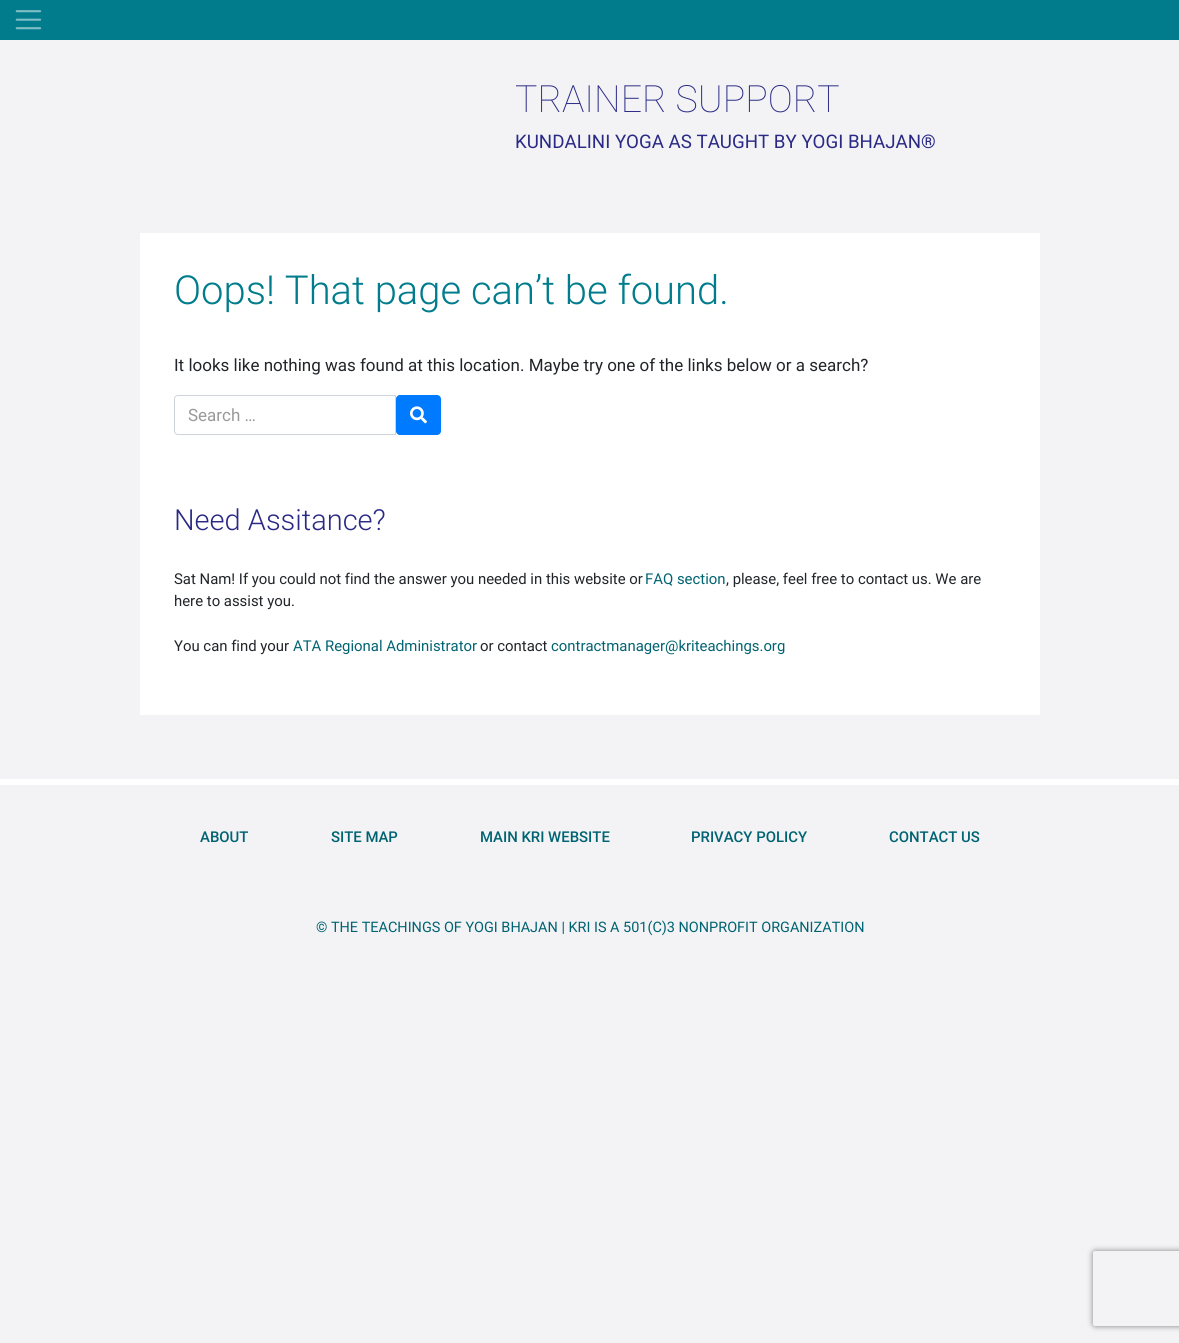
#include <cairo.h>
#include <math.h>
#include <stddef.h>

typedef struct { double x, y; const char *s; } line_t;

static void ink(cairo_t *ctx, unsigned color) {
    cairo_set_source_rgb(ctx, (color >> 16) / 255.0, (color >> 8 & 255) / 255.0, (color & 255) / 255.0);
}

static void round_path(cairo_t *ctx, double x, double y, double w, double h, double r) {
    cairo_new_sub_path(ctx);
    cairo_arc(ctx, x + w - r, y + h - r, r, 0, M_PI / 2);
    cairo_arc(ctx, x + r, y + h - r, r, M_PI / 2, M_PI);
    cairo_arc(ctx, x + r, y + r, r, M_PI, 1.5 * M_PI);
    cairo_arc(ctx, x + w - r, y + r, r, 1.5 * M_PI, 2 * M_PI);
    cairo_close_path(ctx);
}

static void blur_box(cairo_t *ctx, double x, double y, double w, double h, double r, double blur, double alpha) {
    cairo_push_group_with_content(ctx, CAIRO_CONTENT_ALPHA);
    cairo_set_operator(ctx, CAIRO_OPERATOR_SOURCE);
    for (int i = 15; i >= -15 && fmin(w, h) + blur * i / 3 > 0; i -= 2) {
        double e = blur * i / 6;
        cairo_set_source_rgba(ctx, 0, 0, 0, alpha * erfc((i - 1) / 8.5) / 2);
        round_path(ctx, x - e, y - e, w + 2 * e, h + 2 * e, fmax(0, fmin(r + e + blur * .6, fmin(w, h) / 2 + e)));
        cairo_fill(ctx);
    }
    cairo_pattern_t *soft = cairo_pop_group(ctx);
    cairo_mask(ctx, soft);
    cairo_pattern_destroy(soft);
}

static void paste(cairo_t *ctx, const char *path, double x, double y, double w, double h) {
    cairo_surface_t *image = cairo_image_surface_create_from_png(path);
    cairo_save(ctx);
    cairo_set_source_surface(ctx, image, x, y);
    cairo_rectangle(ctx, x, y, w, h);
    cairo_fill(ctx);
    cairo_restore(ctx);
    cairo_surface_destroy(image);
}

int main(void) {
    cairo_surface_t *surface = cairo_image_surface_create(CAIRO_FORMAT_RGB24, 1179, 1343);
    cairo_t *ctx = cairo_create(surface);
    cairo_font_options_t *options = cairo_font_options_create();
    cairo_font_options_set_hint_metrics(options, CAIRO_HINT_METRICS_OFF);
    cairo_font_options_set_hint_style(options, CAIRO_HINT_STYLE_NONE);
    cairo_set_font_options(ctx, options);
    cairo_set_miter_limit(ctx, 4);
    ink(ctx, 0xF3F3F5);
    cairo_paint(ctx);
    ink(ctx, 0x007C8D);
    cairo_rectangle(ctx, 0, 0, 1179, 40);
    cairo_fill(ctx);
    paste(ctx, "media/1.png", 15, 10, 27, 20);
    cairo_select_font_face(ctx, "Roboto Thin", CAIRO_FONT_SLANT_NORMAL, CAIRO_FONT_WEIGHT_NORMAL);
    cairo_set_font_size(ctx, 37.5);
    ink(ctx, 0x2A2A86);
    cairo_move_to(ctx, 515, 112);
    cairo_show_text(ctx, "TRAINER SUPPORT");
    cairo_select_font_face(ctx, "Roboto", CAIRO_FONT_SLANT_NORMAL, CAIRO_FONT_WEIGHT_NORMAL);
    cairo_set_font_size(ctx, 18.7);
    cairo_move_to(ctx, 515, 148);
    cairo_show_text(ctx, "KUNDALINI YOGA AS TAUGHT BY YOGI BHAJAN®");
    ink(ctx, 0xFFFFFF);
    cairo_rectangle(ctx, 0, 779, 1179, 6);
    cairo_fill(ctx);
    cairo_rectangle(ctx, 140, 233, 900, 482);
    cairo_fill(ctx);
    cairo_select_font_face(ctx, "Roboto Light", CAIRO_FONT_SLANT_NORMAL, CAIRO_FONT_WEIGHT_NORMAL);
    cairo_set_font_size(ctx, 40);
    ink(ctx, 0x007C8D);
    cairo_move_to(ctx, 174, 304);
    cairo_show_text(ctx, "Oops! That page can’t be found.");
    cairo_select_font_face(ctx, "Roboto", CAIRO_FONT_SLANT_NORMAL, CAIRO_FONT_WEIGHT_NORMAL);
    cairo_set_font_size(ctx, 17);
    ink(ctx, 0x212529);
    cairo_move_to(ctx, 174, 371);
    cairo_show_text(ctx, "It looks like nothing was found at this location. Maybe try one of the links below or a search?");
    cairo_new_path(ctx);
    cairo_move_to(ctx, 178, 395.5);
    cairo_line_to(ctx, 395.5, 395.5);
    cairo_line_to(ctx, 395.5, 434.5);
    cairo_line_to(ctx, 178, 434.5);
    cairo_curve_to(ctx, 176, 434.5, 174.5, 433, 174.5, 431);
    cairo_line_to(ctx, 174.5, 399);
    cairo_curve_to(ctx, 174.5, 397, 176, 395.5, 178, 395.5);
    cairo_close_path(ctx);
    ink(ctx, 0xCED4DA);
    cairo_set_line_width(ctx, 1);
    cairo_stroke(ctx);
    ink(ctx, 0x999999);
    cairo_move_to(ctx, 188, 421);
    cairo_show_text(ctx, "Search …");
    ink(ctx, 0x007BFF);
    round_path(ctx, 396.5, 395.5, 44, 39, 3.5);
    cairo_fill_preserve(ctx);
    cairo_stroke(ctx);
    paste(ctx, "media/2.png", 410, 406, 17, 18);
    cairo_select_font_face(ctx, "Roboto Light", CAIRO_FONT_SLANT_NORMAL, CAIRO_FONT_WEIGHT_NORMAL);
    cairo_set_font_size(ctx, 29);
    ink(ctx, 0x2A2A86);
    cairo_move_to(ctx, 174, 530);
    cairo_show_text(ctx, "Need Assitance?");
    cairo_select_font_face(ctx, "Roboto", CAIRO_FONT_SLANT_NORMAL, CAIRO_FONT_WEIGHT_NORMAL);
    cairo_set_font_size(ctx, 14.9);
    ink(ctx, 0x212529);
    cairo_move_to(ctx, 174, 584);
    cairo_show_text(ctx, "Sat Nam! If you could not find the answer you needed in this website or");
    ink(ctx, 0x006371);
    cairo_move_to(ctx, 645, 584);
    cairo_show_text(ctx, "FAQ section");
    ink(ctx, 0x212529);
    {
        static const line_t items[] = {
            {726, 584, ", please, feel free to contact us. We are"},
            {174, 606, "here to assist you."},
            {174, 651, "You can find your"},
        };
        for (size_t i = 0; i < sizeof items / sizeof *items; i++) {
            cairo_move_to(ctx, items[i].x, items[i].y);
            cairo_show_text(ctx, items[i].s);
        }
    }
    ink(ctx, 0x006371);
    cairo_move_to(ctx, 293, 651);
    cairo_show_text(ctx, "ATA Regional Administrator");
    ink(ctx, 0x212529);
    cairo_move_to(ctx, 480, 651);
    cairo_show_text(ctx, "or contact");
    ink(ctx, 0x006371);
    cairo_move_to(ctx, 551, 651);
    cairo_show_text(ctx, "contractmanager@kriteachings.org");
    cairo_select_font_face(ctx, "Roboto Medium", CAIRO_FONT_SLANT_NORMAL, CAIRO_FONT_WEIGHT_NORMAL);
    {
        static const line_t items[] = {
            {200, 842, "ABOUT"},
            {331, 842, "SITE MAP"},
            {480, 842, "MAIN KRI WEBSITE"},
            {691, 842, "PRIVACY POLICY"},
            {889, 842, "CONTACT US"},
        };
        for (size_t i = 0; i < sizeof items / sizeof *items; i++) {
            cairo_move_to(ctx, items[i].x, items[i].y);
            cairo_show_text(ctx, items[i].s);
        }
    }
    cairo_select_font_face(ctx, "Roboto", CAIRO_FONT_SLANT_NORMAL, CAIRO_FONT_WEIGHT_NORMAL);
    cairo_set_font_size(ctx, 14.45);
    cairo_move_to(ctx, 316, 932);
    cairo_show_text(ctx, "© THE TEACHINGS OF YOGI BHAJAN | KRI IS A 501(C)3 NONPROFIT ORGANIZATION");
    cairo_save(ctx);
    cairo_set_fill_rule(ctx, CAIRO_FILL_RULE_EVEN_ODD);
    cairo_new_path(ctx);
    cairo_move_to(ctx, 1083, 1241);
    cairo_line_to(ctx, 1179, 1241);
    cairo_line_to(ctx, 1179, 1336);
    cairo_line_to(ctx, 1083, 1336);
    cairo_close_path(ctx);
    cairo_move_to(ctx, 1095.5, 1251);
    cairo_line_to(ctx, 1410.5, 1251);
    cairo_curve_to(ctx, 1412, 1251, 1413, 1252, 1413, 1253.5);
    cairo_line_to(ctx, 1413, 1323.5);
    cairo_curve_to(ctx, 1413, 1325, 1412, 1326, 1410.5, 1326);
    cairo_line_to(ctx, 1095.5, 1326);
    cairo_curve_to(ctx, 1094, 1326, 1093, 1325, 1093, 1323.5);
    cairo_line_to(ctx, 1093, 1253.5);
    cairo_curve_to(ctx, 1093, 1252, 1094, 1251, 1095.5, 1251);
    cairo_close_path(ctx);
    cairo_clip(ctx);
    ink(ctx, 0x808080);
    blur_box(ctx, 1093, 1251, 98, 75, 2.5, 3, 1);
    cairo_restore(ctx);
    cairo_surface_write_to_png(surface, "image.png");
    cairo_font_options_destroy(options);
    cairo_destroy(ctx);
    cairo_surface_destroy(surface);
    return 0;
}
